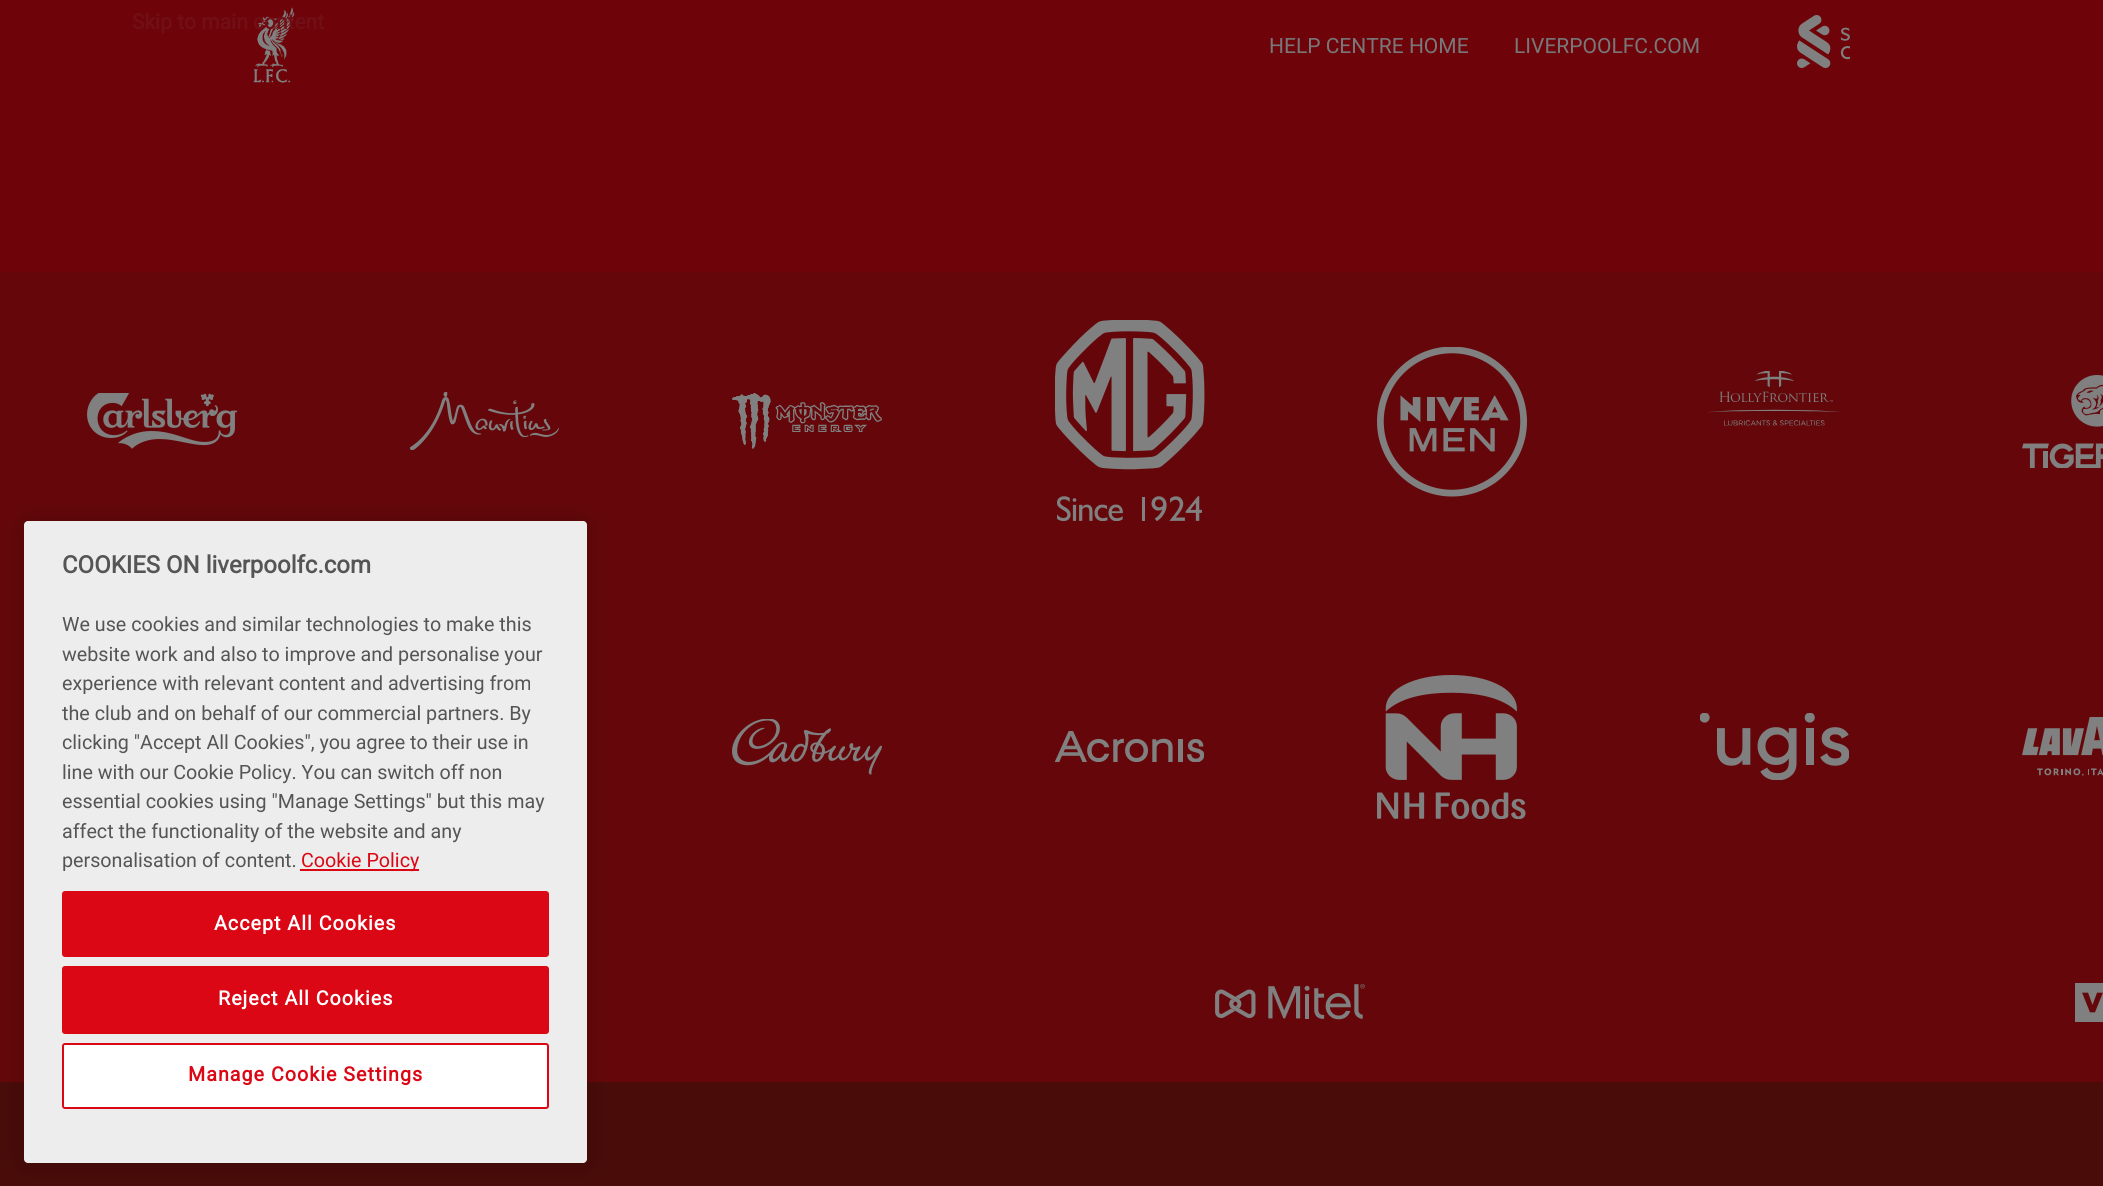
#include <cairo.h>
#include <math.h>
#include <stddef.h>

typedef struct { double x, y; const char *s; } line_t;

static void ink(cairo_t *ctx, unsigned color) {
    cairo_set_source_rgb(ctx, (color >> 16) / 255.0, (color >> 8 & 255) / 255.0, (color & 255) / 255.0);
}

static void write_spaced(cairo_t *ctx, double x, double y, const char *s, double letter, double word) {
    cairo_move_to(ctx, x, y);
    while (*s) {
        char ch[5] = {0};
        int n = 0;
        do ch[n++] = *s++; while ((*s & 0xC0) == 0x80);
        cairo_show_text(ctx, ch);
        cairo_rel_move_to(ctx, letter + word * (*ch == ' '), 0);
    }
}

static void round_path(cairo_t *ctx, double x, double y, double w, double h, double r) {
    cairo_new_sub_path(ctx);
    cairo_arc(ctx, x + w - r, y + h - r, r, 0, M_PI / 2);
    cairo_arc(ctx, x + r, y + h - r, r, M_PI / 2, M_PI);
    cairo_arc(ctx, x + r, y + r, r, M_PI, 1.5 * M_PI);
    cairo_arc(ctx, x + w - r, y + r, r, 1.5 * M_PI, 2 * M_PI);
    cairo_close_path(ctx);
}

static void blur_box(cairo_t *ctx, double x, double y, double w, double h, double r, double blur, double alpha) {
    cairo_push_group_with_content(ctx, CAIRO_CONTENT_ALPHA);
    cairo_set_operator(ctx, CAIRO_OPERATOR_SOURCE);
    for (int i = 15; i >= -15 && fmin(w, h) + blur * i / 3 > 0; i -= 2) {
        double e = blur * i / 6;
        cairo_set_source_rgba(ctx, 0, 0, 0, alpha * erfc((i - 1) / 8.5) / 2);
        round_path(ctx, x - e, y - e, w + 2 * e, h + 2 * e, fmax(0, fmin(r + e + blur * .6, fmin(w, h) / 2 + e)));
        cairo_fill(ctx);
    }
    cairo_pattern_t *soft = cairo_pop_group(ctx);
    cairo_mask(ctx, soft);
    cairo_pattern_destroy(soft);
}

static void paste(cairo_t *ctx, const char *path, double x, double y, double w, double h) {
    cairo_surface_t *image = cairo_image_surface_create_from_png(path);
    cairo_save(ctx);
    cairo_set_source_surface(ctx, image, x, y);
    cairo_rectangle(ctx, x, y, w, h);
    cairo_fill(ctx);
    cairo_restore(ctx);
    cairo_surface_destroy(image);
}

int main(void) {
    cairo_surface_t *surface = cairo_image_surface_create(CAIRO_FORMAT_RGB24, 2103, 1186);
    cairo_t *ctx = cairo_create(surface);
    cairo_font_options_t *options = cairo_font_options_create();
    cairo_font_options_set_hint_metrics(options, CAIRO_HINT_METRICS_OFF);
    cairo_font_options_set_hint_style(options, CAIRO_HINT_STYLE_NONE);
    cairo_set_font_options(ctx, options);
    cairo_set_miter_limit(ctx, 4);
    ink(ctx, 0x6E040A);
    cairo_paint(ctx);
    paste(ctx, "media/1.png", 253, 7, 42, 76);
    cairo_select_font_face(ctx, "Roboto", CAIRO_FONT_SLANT_NORMAL, CAIRO_FONT_WEIGHT_BOLD);
    cairo_set_font_size(ctx, 21);
    ink(ctx, 0x700F15);
    cairo_move_to(ctx, 132, 29);
    cairo_show_text(ctx, "Skip to main content");
    cairo_select_font_face(ctx, "Roboto", CAIRO_FONT_SLANT_NORMAL, CAIRO_FONT_WEIGHT_NORMAL);
    ink(ctx, 0x78787A);
    cairo_move_to(ctx, 1269, 53);
    cairo_show_text(ctx, "HELP CENTRE HOME");
    cairo_move_to(ctx, 1514, 53);
    cairo_show_text(ctx, "LIVERPOOLFC.COM");
    paste(ctx, "media/2.png", 1797, 15, 53, 53);
    ink(ctx, 0x65070A);
    cairo_rectangle(ctx, 0, 272, 2103, 810);
    cairo_fill(ctx);
    paste(ctx, "media/3.png", 87, 393, 150, 56);
    paste(ctx, "media/4.png", 410, 392, 149, 58);
    paste(ctx, "media/5.png", 732, 393, 150, 56);
    paste(ctx, "media/6.png", 1055, 320, 150, 201);
    paste(ctx, "media/7.png", 1377, 347, 150, 150);
    paste(ctx, "media/8.png", 1708, 371, 134, 55);
    paste(ctx, "media/9.png", 2022, 375, 81, 93);
    paste(ctx, "media/10.png", 732, 719, 150, 56);
    paste(ctx, "media/11.png", 1055, 731, 149, 31);
    paste(ctx, "media/12.png", 1377, 675, 149, 144);
    paste(ctx, "media/13.png", 1700, 713, 149, 67);
    paste(ctx, "media/14.png", 2022, 717, 81, 59);
    paste(ctx, "media/15.png", 1215, 984, 150, 36);
    paste(ctx, "media/16.png", 2075, 983, 28, 39);
    ink(ctx, 0x490C09);
    cairo_rectangle(ctx, 0, 1082, 2103, 104);
    cairo_fill(ctx);
    ink(ctx, 0x000000);
    blur_box(ctx, 24, 521, 563, 642, 4, 13.5, 0.2);
    ink(ctx, 0xEDEDED);
    round_path(ctx, 24, 521, 563, 642, 4);
    cairo_fill(ctx);
    cairo_select_font_face(ctx, "Roboto", CAIRO_FONT_SLANT_NORMAL, CAIRO_FONT_WEIGHT_BOLD);
    cairo_set_font_size(ctx, 24);
    ink(ctx, 0x555555);
    cairo_move_to(ctx, 62, 573);
    cairo_show_text(ctx, "COOKIES ON liverpoolfc.com");
    cairo_select_font_face(ctx, "Roboto", CAIRO_FONT_SLANT_NORMAL, CAIRO_FONT_WEIGHT_NORMAL);
    cairo_set_font_size(ctx, 19.7);
    {
        static const line_t items[] = {
            {62, 631, "We use cookies and similar technologies to make this"},
            {62, 661, "website work and also to improve and personalise your"},
            {62, 690, "experience with relevant content and advertising from"},
            {62, 720, "the club and on behalf of our commercial partners. By"},
            {62, 749, "clicking \"Accept All Cookies\", you agree to their use in"},
            {62, 779, "line with our Cookie Policy. You can switch off non"},
            {62, 808, "essential cookies using \"Manage Settings\" but this may"},
            {62, 838, "affect the functionality of the website and any"},
            {62, 867, "personalisation of content."},
        };
        for (size_t i = 0; i < sizeof items / sizeof *items; i++) {
            cairo_move_to(ctx, items[i].x, items[i].y);
            cairo_show_text(ctx, items[i].s);
        }
    }
    ink(ctx, 0xDC0714);
    cairo_rectangle(ctx, 300, 869, 119, 2);
    cairo_fill(ctx);
    cairo_move_to(ctx, 301, 867);
    cairo_show_text(ctx, "Cookie Policy");
    round_path(ctx, 63, 892, 485, 64, 2);
    cairo_fill_preserve(ctx);
    cairo_stroke(ctx);
    cairo_select_font_face(ctx, "Roboto", CAIRO_FONT_SLANT_NORMAL, CAIRO_FONT_WEIGHT_BOLD);
    ink(ctx, 0xFFFFFF);
    write_spaced(ctx, 214, 930, "Accept All Cookies", 1, 0);
    ink(ctx, 0xDC0714);
    round_path(ctx, 63, 967, 485, 66, 2);
    cairo_fill_preserve(ctx);
    cairo_stroke(ctx);
    ink(ctx, 0xFFFFFF);
    write_spaced(ctx, 218, 1005, "Reject All Cookies", 1, 0);
    round_path(ctx, 63, 1044, 485, 64, 2);
    cairo_fill_preserve(ctx);
    ink(ctx, 0xDC0714);
    cairo_stroke(ctx);
    write_spaced(ctx, 188, 1081, "Manage Cookie Settings", 1, 0);
    cairo_surface_write_to_png(surface, "image.png");
    cairo_font_options_destroy(options);
    cairo_destroy(ctx);
    cairo_surface_destroy(surface);
    return 0;
}
